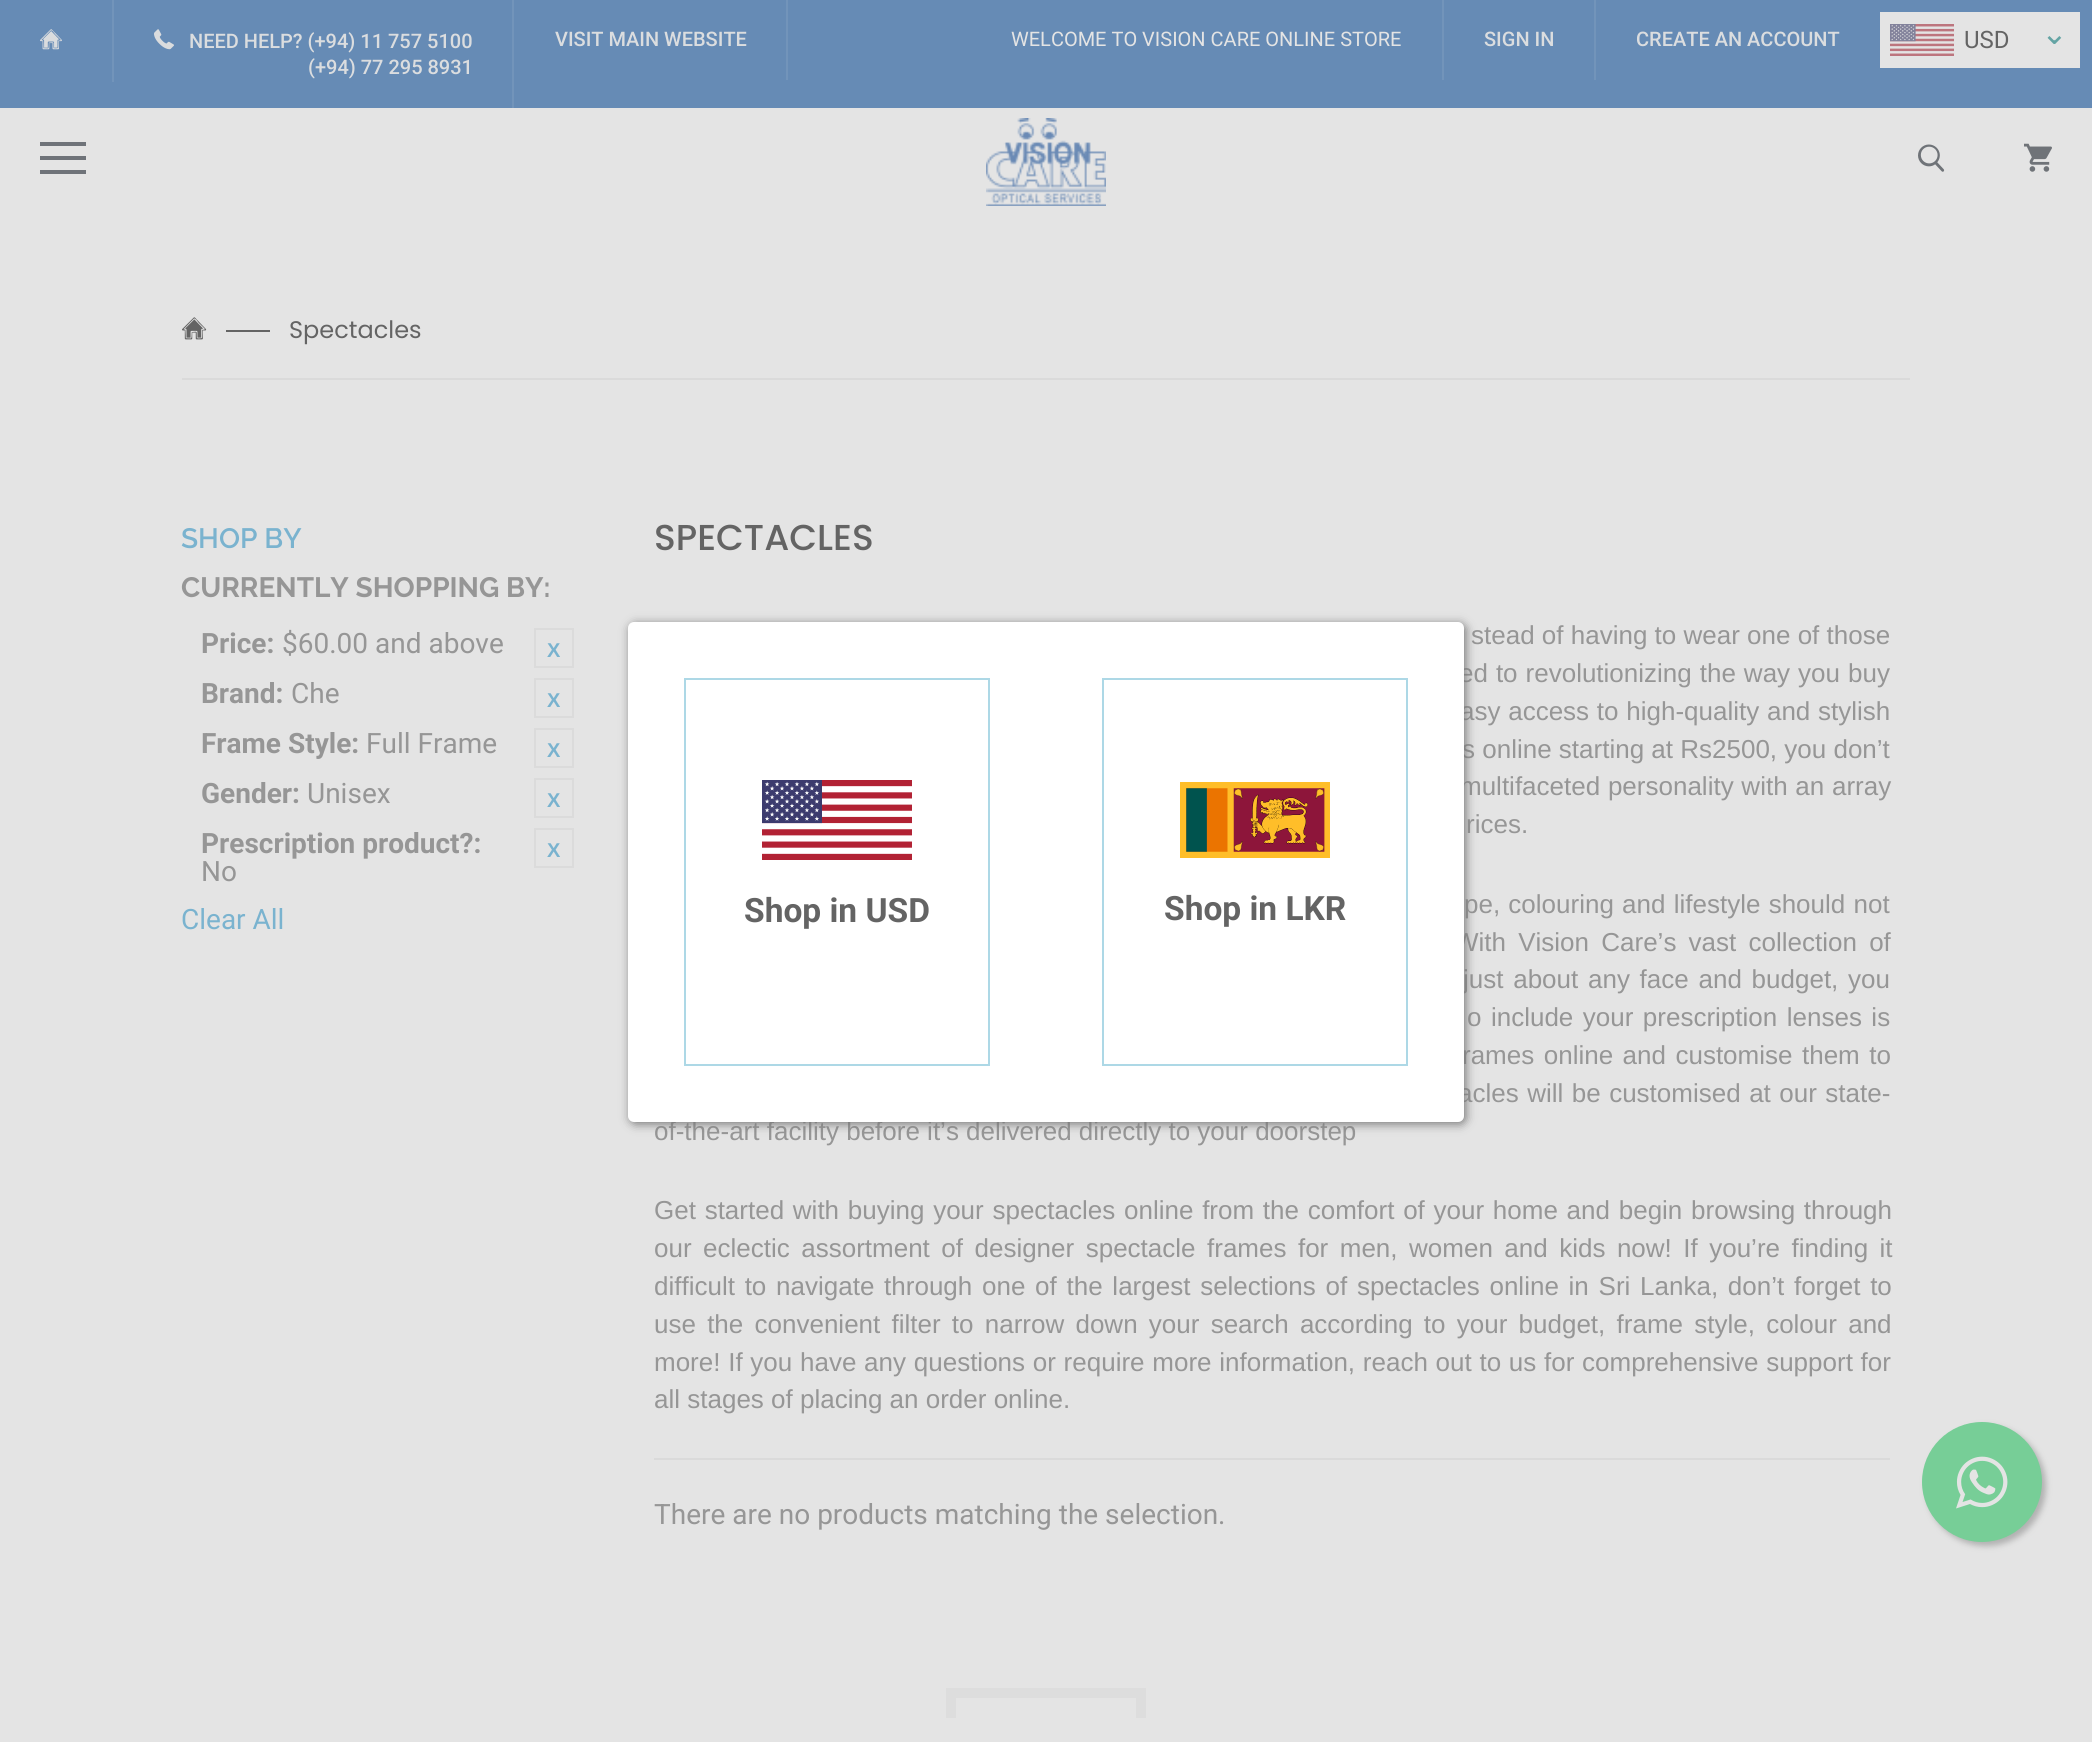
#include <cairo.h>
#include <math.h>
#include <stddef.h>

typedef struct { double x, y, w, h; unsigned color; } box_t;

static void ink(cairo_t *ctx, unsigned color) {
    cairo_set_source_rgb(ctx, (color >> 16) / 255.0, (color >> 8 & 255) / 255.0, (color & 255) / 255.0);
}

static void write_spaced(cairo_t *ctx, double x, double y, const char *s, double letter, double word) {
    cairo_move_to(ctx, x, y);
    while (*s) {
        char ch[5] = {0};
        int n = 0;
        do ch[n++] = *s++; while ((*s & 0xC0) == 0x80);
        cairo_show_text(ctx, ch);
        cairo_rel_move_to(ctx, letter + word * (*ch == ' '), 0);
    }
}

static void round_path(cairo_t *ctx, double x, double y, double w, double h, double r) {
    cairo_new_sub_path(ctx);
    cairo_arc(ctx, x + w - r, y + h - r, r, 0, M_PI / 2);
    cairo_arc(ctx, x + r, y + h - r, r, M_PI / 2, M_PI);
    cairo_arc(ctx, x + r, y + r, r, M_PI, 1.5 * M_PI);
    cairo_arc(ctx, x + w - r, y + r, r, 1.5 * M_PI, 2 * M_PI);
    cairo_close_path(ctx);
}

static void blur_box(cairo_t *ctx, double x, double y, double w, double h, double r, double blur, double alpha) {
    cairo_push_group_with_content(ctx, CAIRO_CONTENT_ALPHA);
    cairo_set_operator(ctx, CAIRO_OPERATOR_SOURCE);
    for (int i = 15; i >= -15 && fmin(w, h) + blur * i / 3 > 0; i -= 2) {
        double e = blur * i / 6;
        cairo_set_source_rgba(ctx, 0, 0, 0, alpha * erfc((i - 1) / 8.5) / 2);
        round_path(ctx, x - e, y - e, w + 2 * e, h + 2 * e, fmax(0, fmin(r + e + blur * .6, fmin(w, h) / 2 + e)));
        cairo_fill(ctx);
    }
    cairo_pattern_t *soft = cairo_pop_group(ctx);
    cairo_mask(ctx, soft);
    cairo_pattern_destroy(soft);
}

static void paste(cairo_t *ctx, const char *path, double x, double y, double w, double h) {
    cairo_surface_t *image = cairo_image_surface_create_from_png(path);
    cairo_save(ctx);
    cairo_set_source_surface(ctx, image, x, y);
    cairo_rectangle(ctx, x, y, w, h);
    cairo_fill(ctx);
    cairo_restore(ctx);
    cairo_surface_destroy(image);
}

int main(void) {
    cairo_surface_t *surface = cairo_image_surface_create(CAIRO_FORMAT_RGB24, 2092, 1742);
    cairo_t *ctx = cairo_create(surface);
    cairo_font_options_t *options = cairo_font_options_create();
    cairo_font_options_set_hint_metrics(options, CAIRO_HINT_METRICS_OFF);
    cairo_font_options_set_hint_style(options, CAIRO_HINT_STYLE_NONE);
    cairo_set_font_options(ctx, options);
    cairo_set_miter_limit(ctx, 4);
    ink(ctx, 0xE4E4E4);
    cairo_paint(ctx);
    ink(ctx, 0x668BB5);
    cairo_rectangle(ctx, 0, 0, 2092, 108);
    cairo_fill(ctx);
    ink(ctx, 0x7294BA);
    cairo_rectangle(ctx, 112, 0, 2, 82);
    cairo_fill(ctx);
    paste(ctx, "media/1.png", 40, 29, 22, 21);
    cairo_rectangle(ctx, 512, 0, 2, 108);
    cairo_fill(ctx);
    paste(ctx, "media/2.png", 154, 29, 20, 21);
    cairo_select_font_face(ctx, "Roboto Medium", CAIRO_FONT_SLANT_NORMAL, CAIRO_FONT_WEIGHT_NORMAL);
    cairo_set_font_size(ctx, 20);
    ink(ctx, 0xDBDDDF);
    cairo_move_to(ctx, 189, 48);
    cairo_show_text(ctx, "NEED HELP? (+94) 11 757 5100");
    cairo_move_to(ctx, 308, 74);
    cairo_show_text(ctx, "(+94) 77 295 8931");
    ink(ctx, 0x7294BA);
    cairo_rectangle(ctx, 786, 0, 2, 80);
    cairo_fill(ctx);
    ink(ctx, 0xDBDDDF);
    cairo_move_to(ctx, 555, 46);
    cairo_show_text(ctx, "VISIT MAIN WEBSITE");
    cairo_select_font_face(ctx, "Roboto", CAIRO_FONT_SLANT_NORMAL, CAIRO_FONT_WEIGHT_NORMAL);
    ink(ctx, 0xE4E4E4);
    cairo_move_to(ctx, 1011, 46);
    cairo_show_text(ctx, "WELCOME TO VISION CARE ONLINE STORE");
    ink(ctx, 0x7294BA);
    cairo_rectangle(ctx, 1442, 0, 2, 80);
    cairo_fill(ctx);
    cairo_select_font_face(ctx, "Roboto Medium", CAIRO_FONT_SLANT_NORMAL, CAIRO_FONT_WEIGHT_NORMAL);
    ink(ctx, 0xDBDDDF);
    cairo_move_to(ctx, 1484, 46);
    cairo_show_text(ctx, "SIGN IN");
    ink(ctx, 0x7294BA);
    cairo_rectangle(ctx, 1594, 0, 2, 80);
    cairo_fill(ctx);
    ink(ctx, 0xDBDDDF);
    cairo_move_to(ctx, 1636, 46);
    cairo_show_text(ctx, "CREATE AN ACCOUNT");
    ink(ctx, 0xE4E4E4);
    cairo_rectangle(ctx, 1880, 12, 200, 56);
    cairo_fill(ctx);
    paste(ctx, "media/3.png", 1890, 24, 64, 32);
    cairo_select_font_face(ctx, "Roboto", CAIRO_FONT_SLANT_NORMAL, CAIRO_FONT_WEIGHT_NORMAL);
    cairo_set_font_size(ctx, 24);
    ink(ctx, 0x646464);
    cairo_move_to(ctx, 1964, 48);
    cairo_show_text(ctx, "USD");
    cairo_select_font_face(ctx, "DejaVu Sans", CAIRO_FONT_SLANT_NORMAL, CAIRO_FONT_WEIGHT_NORMAL);
    cairo_set_font_size(ctx, 32);
    ink(ctx, 0x64A4A4);
    cairo_move_to(ctx, 2041, 44);
    cairo_show_text(ctx, "⌄");
    {
        static const box_t items[] = {
            {40, 156, 46, 4, 0x6F7379},
            {40, 142, 46, 4, 0x6F7379},
            {40, 170, 46, 4, 0x6F7379},
        };
        for (size_t i = 0; i < sizeof items / sizeof *items; i++) {
            ink(ctx, items[i].color);
            cairo_rectangle(ctx, items[i].x, items[i].y, items[i].w, items[i].h);
            cairo_fill(ctx);
        }
    }
    paste(ctx, "media/4.png", 986, 118, 120, 88);
    paste(ctx, "media/5.png", 1918, 144, 27, 28);
    paste(ctx, "media/6.png", 2024, 143, 28, 29);
    ink(ctx, 0xDADADA);
    cairo_rectangle(ctx, 182, 378, 1728, 2);
    cairo_fill(ctx);
    paste(ctx, "media/7.png", 182, 317, 25, 23);
    ink(ctx, 0x646464);
    cairo_rectangle(ctx, 226, 330, 44, 2);
    cairo_fill(ctx);
    cairo_select_font_face(ctx, "Poppins", CAIRO_FONT_SLANT_NORMAL, CAIRO_FONT_WEIGHT_NORMAL);
    cairo_set_font_size(ctx, 24);
    cairo_move_to(ctx, 289, 338);
    cairo_show_text(ctx, "Spectacles");
    cairo_select_font_face(ctx, "Raleway SemiBold", CAIRO_FONT_SLANT_NORMAL, CAIRO_FONT_WEIGHT_NORMAL);
    cairo_set_font_size(ctx, 28);
    ink(ctx, 0x7AB3CF);
    cairo_move_to(ctx, 181, 548);
    cairo_show_text(ctx, "SHOP BY");
    cairo_select_font_face(ctx, "Raleway", CAIRO_FONT_SLANT_NORMAL, CAIRO_FONT_WEIGHT_BOLD);
    ink(ctx, 0x969696);
    cairo_move_to(ctx, 181, 597);
    cairo_show_text(ctx, "CURRENTLY SHOPPING BY:");
    cairo_select_font_face(ctx, "Roboto", CAIRO_FONT_SLANT_NORMAL, CAIRO_FONT_WEIGHT_BOLD);
    cairo_move_to(ctx, 201, 653);
    cairo_show_text(ctx, "Price:");
    cairo_select_font_face(ctx, "Roboto", CAIRO_FONT_SLANT_NORMAL, CAIRO_FONT_WEIGHT_NORMAL);
    cairo_move_to(ctx, 282, 653);
    cairo_show_text(ctx, "$60.00 and above");
    cairo_rectangle(ctx, 535, 629, 38, 38);
    ink(ctx, 0xDBDBDB);
    cairo_stroke(ctx);
    cairo_select_font_face(ctx, "Liberation Sans", CAIRO_FONT_SLANT_NORMAL, CAIRO_FONT_WEIGHT_BOLD);
    cairo_set_font_size(ctx, 20);
    ink(ctx, 0x7AB3CF);
    cairo_move_to(ctx, 547, 657);
    cairo_show_text(ctx, "X");
    cairo_select_font_face(ctx, "Roboto", CAIRO_FONT_SLANT_NORMAL, CAIRO_FONT_WEIGHT_BOLD);
    cairo_set_font_size(ctx, 28);
    ink(ctx, 0x969696);
    cairo_move_to(ctx, 201, 703);
    cairo_show_text(ctx, "Brand:");
    cairo_select_font_face(ctx, "Roboto", CAIRO_FONT_SLANT_NORMAL, CAIRO_FONT_WEIGHT_NORMAL);
    cairo_move_to(ctx, 291, 703);
    cairo_show_text(ctx, "Che");
    cairo_rectangle(ctx, 535, 679, 38, 38);
    ink(ctx, 0xDBDBDB);
    cairo_stroke(ctx);
    cairo_select_font_face(ctx, "Liberation Sans", CAIRO_FONT_SLANT_NORMAL, CAIRO_FONT_WEIGHT_BOLD);
    cairo_set_font_size(ctx, 20);
    ink(ctx, 0x7AB3CF);
    cairo_move_to(ctx, 547, 707);
    cairo_show_text(ctx, "X");
    cairo_select_font_face(ctx, "Roboto", CAIRO_FONT_SLANT_NORMAL, CAIRO_FONT_WEIGHT_BOLD);
    cairo_set_font_size(ctx, 28);
    ink(ctx, 0x969696);
    cairo_move_to(ctx, 201, 753);
    cairo_show_text(ctx, "Frame Style:");
    cairo_select_font_face(ctx, "Roboto", CAIRO_FONT_SLANT_NORMAL, CAIRO_FONT_WEIGHT_NORMAL);
    cairo_move_to(ctx, 366, 753);
    cairo_show_text(ctx, "Full Frame");
    cairo_rectangle(ctx, 535, 729, 38, 38);
    ink(ctx, 0xDBDBDB);
    cairo_stroke(ctx);
    cairo_select_font_face(ctx, "Liberation Sans", CAIRO_FONT_SLANT_NORMAL, CAIRO_FONT_WEIGHT_BOLD);
    cairo_set_font_size(ctx, 20);
    ink(ctx, 0x7AB3CF);
    cairo_move_to(ctx, 547, 757);
    cairo_show_text(ctx, "X");
    cairo_select_font_face(ctx, "Roboto", CAIRO_FONT_SLANT_NORMAL, CAIRO_FONT_WEIGHT_BOLD);
    cairo_set_font_size(ctx, 28);
    ink(ctx, 0x969696);
    cairo_move_to(ctx, 201, 803);
    cairo_show_text(ctx, "Gender:");
    cairo_select_font_face(ctx, "Roboto", CAIRO_FONT_SLANT_NORMAL, CAIRO_FONT_WEIGHT_NORMAL);
    cairo_move_to(ctx, 307, 803);
    cairo_show_text(ctx, "Unisex");
    cairo_rectangle(ctx, 535, 779, 38, 38);
    ink(ctx, 0xDBDBDB);
    cairo_stroke(ctx);
    cairo_select_font_face(ctx, "Liberation Sans", CAIRO_FONT_SLANT_NORMAL, CAIRO_FONT_WEIGHT_BOLD);
    cairo_set_font_size(ctx, 20);
    ink(ctx, 0x7AB3CF);
    cairo_move_to(ctx, 547, 807);
    cairo_show_text(ctx, "X");
    cairo_select_font_face(ctx, "Roboto", CAIRO_FONT_SLANT_NORMAL, CAIRO_FONT_WEIGHT_BOLD);
    cairo_set_font_size(ctx, 28);
    ink(ctx, 0x969696);
    cairo_move_to(ctx, 201, 853);
    cairo_show_text(ctx, "Prescription product?:");
    cairo_rectangle(ctx, 535, 829, 38, 38);
    ink(ctx, 0xDBDBDB);
    cairo_stroke(ctx);
    cairo_select_font_face(ctx, "Liberation Sans", CAIRO_FONT_SLANT_NORMAL, CAIRO_FONT_WEIGHT_BOLD);
    cairo_set_font_size(ctx, 20);
    ink(ctx, 0x7AB3CF);
    cairo_move_to(ctx, 547, 857);
    cairo_show_text(ctx, "X");
    cairo_select_font_face(ctx, "Roboto", CAIRO_FONT_SLANT_NORMAL, CAIRO_FONT_WEIGHT_NORMAL);
    cairo_set_font_size(ctx, 28);
    ink(ctx, 0x969696);
    cairo_move_to(ctx, 201, 881);
    cairo_show_text(ctx, "No");
    ink(ctx, 0x7AB3CF);
    cairo_move_to(ctx, 181, 929);
    cairo_show_text(ctx, "Clear All");
    cairo_select_font_face(ctx, "Poppins Medium", CAIRO_FONT_SLANT_NORMAL, CAIRO_FONT_WEIGHT_NORMAL);
    cairo_set_font_size(ctx, 36);
    ink(ctx, 0x646464);
    cairo_move_to(ctx, 654, 550);
    cairo_show_text(ctx, "SPECTACLES");
    cairo_select_font_face(ctx, "Liberation Sans", CAIRO_FONT_SLANT_NORMAL, CAIRO_FONT_WEIGHT_NORMAL);
    cairo_set_font_size(ctx, 26);
    ink(ctx, 0x969696);
    cairo_move_to(ctx, 1471, 644);
    cairo_show_text(ctx, "stead of having to wear one of those");
    write_spaced(ctx, 1459, 682, "ed to revolutionizing the way you buy", 0, 0.75);
    write_spaced(ctx, 1460, 720, "asy access to high-quality and stylish", 0, 0.5);
    cairo_move_to(ctx, 1462, 758);
    cairo_show_text(ctx, "s online starting at Rs2500, you don’t");
    write_spaced(ctx, 1460, 795, "multifaceted personality with an array", 0, 0.5);
    cairo_move_to(ctx, 1466, 833);
    cairo_show_text(ctx, "rices.");
    write_spaced(ctx, 1464, 913, "pe, colouring and lifestyle should not", 0, 1);
    write_spaced(ctx, 1454, 951, "With Vision Care’s vast collection of", 0, 5);
    write_spaced(ctx, 1463, 988, "just about any face and budget, you", 0, 2.5);
    write_spaced(ctx, 1467, 1026, "o include your prescription lenses is", 0, 2.25);
    write_spaced(ctx, 1462, 1064, "rames online and customise them to", 0, 2.25);
    write_spaced(ctx, 1458, 1102, "acles will be customised at our state-", 0, 1.25);
    cairo_move_to(ctx, 654, 1140);
    cairo_show_text(ctx, "of-the-art facility before it’s delivered directly to your doorstep");
    write_spaced(ctx, 654, 1219, "Get started with buying your spectacles online from the comfort of your home and begin browsing through", 0, 1.5);
    write_spaced(ctx, 654, 1257, "our eclectic assortment of designer spectacle frames for men, women and kids now! If you’re finding it", 0, 4.25);
    write_spaced(ctx, 654, 1295, "difficult to navigate through one of the largest selections of spectacles online in Sri Lanka, don’t forget to", 0, 2.5);
    write_spaced(ctx, 654, 1333, "use the convenient filter to narrow down your search according to your budget, frame style, colour and", 0, 4);
    write_spaced(ctx, 654, 1371, "more! If you have any questions or require more information, reach out to us for comprehensive support for", 0, 0.5);
    cairo_move_to(ctx, 654, 1408);
    cairo_show_text(ctx, "all stages of placing an order online.");
    ink(ctx, 0xDADADA);
    cairo_rectangle(ctx, 654, 1458, 1236, 2);
    cairo_fill(ctx);
    cairo_select_font_face(ctx, "Roboto", CAIRO_FONT_SLANT_NORMAL, CAIRO_FONT_WEIGHT_NORMAL);
    cairo_set_font_size(ctx, 28);
    ink(ctx, 0x969696);
    cairo_move_to(ctx, 654, 1524);
    cairo_show_text(ctx, "There are no products matching the selection.");
    ink(ctx, 0x777777);
    blur_box(ctx, 630, 624, 836, 500, 6, 5, 1);
    ink(ctx, 0xFFFFFF);
    round_path(ctx, 628, 622, 836, 500, 6);
    cairo_fill(ctx);
    cairo_rectangle(ctx, 685, 679, 304, 386);
    ink(ctx, 0xADD8E6);
    cairo_stroke(ctx);
    paste(ctx, "media/8.png", 762, 780, 150, 80);
    cairo_select_font_face(ctx, "Roboto", CAIRO_FONT_SLANT_NORMAL, CAIRO_FONT_WEIGHT_BOLD);
    cairo_set_font_size(ctx, 33.5);
    ink(ctx, 0x646464);
    cairo_move_to(ctx, 744, 922);
    cairo_show_text(ctx, "Shop in USD");
    cairo_rectangle(ctx, 1103, 679, 304, 386);
    ink(ctx, 0xADD8E6);
    cairo_stroke(ctx);
    paste(ctx, "media/9.png", 1180, 782, 150, 76);
    ink(ctx, 0x646464);
    cairo_move_to(ctx, 1164, 920);
    cairo_show_text(ctx, "Shop in LKR");
    ink(ctx, 0xB1B1B1);
    blur_box(ctx, 1926, 1426, 120, 120, 60, 3, 1);
    ink(ctx, 0x77CE97);
    cairo_arc(ctx, 1982, 1482, 60, 0, 2 * M_PI);
    cairo_fill(ctx);
    paste(ctx, "media/10.png", 1956, 1456, 52, 53);
    {
        static const box_t items[] = {
            {956, 1688, 180, 10, 0xDDDDDD},
            {1136, 1688, 10, 30, 0xDDDDDD},
            {946, 1688, 10, 30, 0xDDDDDD},
        };
        for (size_t i = 0; i < sizeof items / sizeof *items; i++) {
            ink(ctx, items[i].color);
            cairo_rectangle(ctx, items[i].x, items[i].y, items[i].w, items[i].h);
            cairo_fill(ctx);
        }
    }
    cairo_surface_write_to_png(surface, "image.png");
    cairo_font_options_destroy(options);
    cairo_destroy(ctx);
    cairo_surface_destroy(surface);
    return 0;
}
